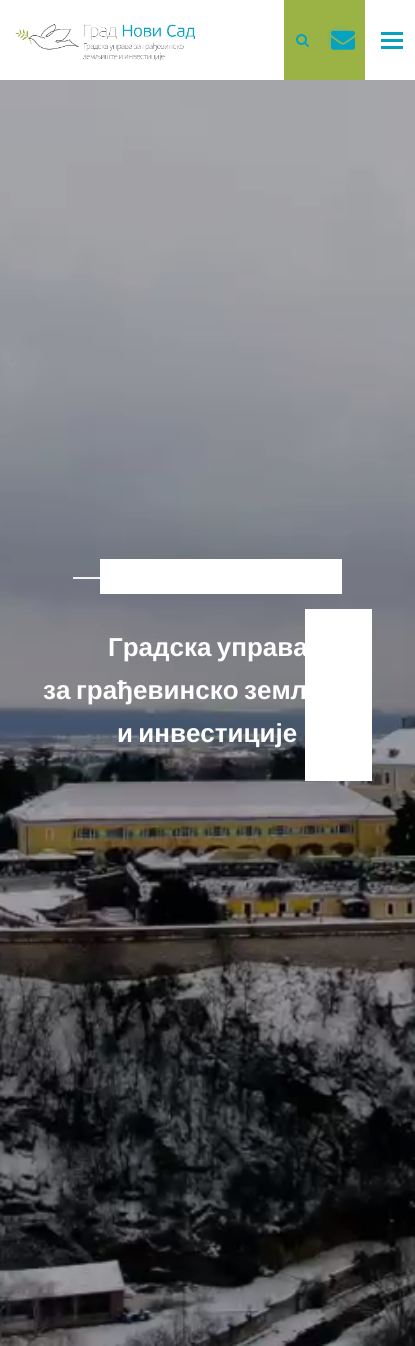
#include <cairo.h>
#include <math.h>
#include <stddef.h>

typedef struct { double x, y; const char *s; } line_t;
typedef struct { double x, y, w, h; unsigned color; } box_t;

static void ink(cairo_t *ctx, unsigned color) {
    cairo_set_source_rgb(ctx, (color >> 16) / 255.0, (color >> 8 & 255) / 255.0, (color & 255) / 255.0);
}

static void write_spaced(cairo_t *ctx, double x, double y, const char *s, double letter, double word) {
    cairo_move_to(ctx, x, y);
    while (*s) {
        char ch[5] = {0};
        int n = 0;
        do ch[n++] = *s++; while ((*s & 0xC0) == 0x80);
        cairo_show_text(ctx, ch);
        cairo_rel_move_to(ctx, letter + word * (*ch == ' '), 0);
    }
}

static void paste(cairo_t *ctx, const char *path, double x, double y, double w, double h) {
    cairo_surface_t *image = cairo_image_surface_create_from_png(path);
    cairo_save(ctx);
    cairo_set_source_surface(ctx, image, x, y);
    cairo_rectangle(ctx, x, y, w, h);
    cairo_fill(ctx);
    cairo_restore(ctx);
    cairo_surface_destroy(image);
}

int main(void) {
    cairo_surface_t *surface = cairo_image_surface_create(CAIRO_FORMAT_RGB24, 415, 1346);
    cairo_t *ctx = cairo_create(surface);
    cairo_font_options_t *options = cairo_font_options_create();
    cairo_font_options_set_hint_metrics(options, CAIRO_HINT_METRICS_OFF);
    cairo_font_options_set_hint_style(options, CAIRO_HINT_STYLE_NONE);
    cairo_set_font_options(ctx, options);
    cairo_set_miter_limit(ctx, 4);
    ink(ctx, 0xFFFFFF);
    cairo_paint(ctx);
    paste(ctx, "media/1.png", 15, 23, 180, 38);
    ink(ctx, 0x9BB345);
    cairo_rectangle(ctx, 284, 0, 81, 80);
    cairo_fill(ctx);
    paste(ctx, "media/2.png", 296, 34, 13, 13);
    cairo_arc(ctx, 339, 38, 9.5, 0, 2 * M_PI);
    ink(ctx, 0x8CB15B);
    cairo_set_line_width(ctx, 5);
    cairo_stroke(ctx);
    paste(ctx, "media/3.png", 331, 30, 24, 20);
    {
        static const box_t items[] = {
            {381, 32, 22, 3, 0x05A3C0},
            {381, 39, 22, 3, 0x05A3C0},
            {381, 46, 22, 3, 0x05A3C0},
        };
        for (size_t i = 0; i < sizeof items / sizeof *items; i++) {
            ink(ctx, items[i].color);
            cairo_rectangle(ctx, items[i].x, items[i].y, items[i].w, items[i].h);
            cairo_fill(ctx);
        }
    }
    paste(ctx, "media/4.png", 0, 80, 415, 1266);
    ink(ctx, 0xF1F2F3);
    cairo_rectangle(ctx, 73, 577, 27, 2);
    cairo_fill(ctx);
    ink(ctx, 0xFFFFFF);
    cairo_rectangle(ctx, 100, 559, 242, 35);
    cairo_fill(ctx);
    cairo_select_font_face(ctx, "Liberation Sans", CAIRO_FONT_SLANT_NORMAL, CAIRO_FONT_WEIGHT_BOLD);
    cairo_set_font_size(ctx, 26);
    ink(ctx, 0xFDFDFD);
    write_spaced(ctx, 108, 656, "Градска управа", 0, -2);
    {
        static const line_t items[] = {
            {43, 699, "за"},
            {76, 699, "грађевинско"},
            {244, 699, "земљ"},
        };
        for (size_t i = 0; i < sizeof items / sizeof *items; i++) {
            cairo_move_to(ctx, items[i].x, items[i].y);
            cairo_show_text(ctx, items[i].s);
        }
    }
    write_spaced(ctx, 117, 742, "и инвестиције", 0, -2);
    ink(ctx, 0xFFFFFF);
    cairo_rectangle(ctx, 305, 609, 67, 172);
    cairo_fill(ctx);
    cairo_surface_write_to_png(surface, "image.png");
    cairo_font_options_destroy(options);
    cairo_destroy(ctx);
    cairo_surface_destroy(surface);
    return 0;
}
